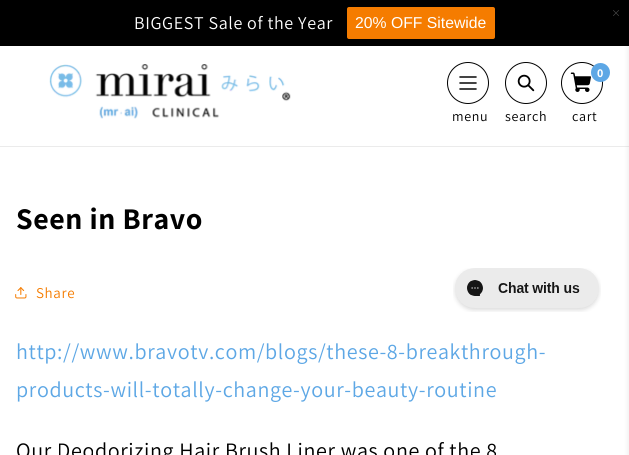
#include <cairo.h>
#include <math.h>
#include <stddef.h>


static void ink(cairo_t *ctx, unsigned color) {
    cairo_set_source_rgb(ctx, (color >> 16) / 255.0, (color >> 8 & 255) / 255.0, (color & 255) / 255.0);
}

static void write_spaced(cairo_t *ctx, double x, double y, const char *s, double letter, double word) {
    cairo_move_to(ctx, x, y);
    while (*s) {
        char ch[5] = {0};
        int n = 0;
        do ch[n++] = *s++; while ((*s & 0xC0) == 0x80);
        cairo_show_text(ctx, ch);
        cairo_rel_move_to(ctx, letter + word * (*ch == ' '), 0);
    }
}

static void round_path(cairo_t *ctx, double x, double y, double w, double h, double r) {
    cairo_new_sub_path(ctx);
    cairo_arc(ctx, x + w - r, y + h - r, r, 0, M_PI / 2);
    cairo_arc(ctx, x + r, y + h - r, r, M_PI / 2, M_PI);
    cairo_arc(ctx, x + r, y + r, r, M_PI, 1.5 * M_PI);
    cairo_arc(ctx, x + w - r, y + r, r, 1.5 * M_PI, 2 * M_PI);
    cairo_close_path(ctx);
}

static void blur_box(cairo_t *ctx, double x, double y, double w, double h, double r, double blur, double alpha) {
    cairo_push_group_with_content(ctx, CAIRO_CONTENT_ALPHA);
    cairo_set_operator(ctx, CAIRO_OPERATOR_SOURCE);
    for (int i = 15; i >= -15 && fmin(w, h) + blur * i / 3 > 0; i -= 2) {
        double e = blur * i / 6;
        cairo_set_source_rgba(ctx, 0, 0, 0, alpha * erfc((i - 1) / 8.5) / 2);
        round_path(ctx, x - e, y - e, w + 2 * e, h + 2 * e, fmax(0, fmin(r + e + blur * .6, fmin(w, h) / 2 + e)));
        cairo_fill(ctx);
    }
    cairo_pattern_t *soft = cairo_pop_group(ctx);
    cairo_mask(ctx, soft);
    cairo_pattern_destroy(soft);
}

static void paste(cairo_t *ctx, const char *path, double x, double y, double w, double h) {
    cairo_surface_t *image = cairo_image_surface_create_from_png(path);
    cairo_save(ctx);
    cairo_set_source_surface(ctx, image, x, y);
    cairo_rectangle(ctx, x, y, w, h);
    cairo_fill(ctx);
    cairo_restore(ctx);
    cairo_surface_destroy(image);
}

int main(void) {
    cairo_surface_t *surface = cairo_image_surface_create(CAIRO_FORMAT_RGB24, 629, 455);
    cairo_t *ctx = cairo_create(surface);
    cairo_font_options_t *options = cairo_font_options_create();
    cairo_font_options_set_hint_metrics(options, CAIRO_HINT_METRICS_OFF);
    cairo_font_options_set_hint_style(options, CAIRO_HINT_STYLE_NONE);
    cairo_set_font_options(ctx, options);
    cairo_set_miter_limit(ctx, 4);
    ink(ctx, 0xFFFFFF);
    cairo_paint(ctx);
    ink(ctx, 0x000000);
    cairo_rectangle(ctx, 0, 0, 629, 46);
    cairo_fill(ctx);
    paste(ctx, "media/1.png", 613, 10, 6, 6);
    cairo_select_font_face(ctx, "Assistant", CAIRO_FONT_SLANT_NORMAL, CAIRO_FONT_WEIGHT_NORMAL);
    cairo_set_font_size(ctx, 18);
    ink(ctx, 0xFFFFFF);
    write_spaced(ctx, 134, 29, "BIGGEST Sale of the Year", 0.63, 0);
    ink(ctx, 0xF57C00);
    round_path(ctx, 347, 7, 148, 32, 2);
    cairo_fill(ctx);
    cairo_select_font_face(ctx, "Liberation Sans", CAIRO_FONT_SLANT_NORMAL, CAIRO_FONT_WEIGHT_NORMAL);
    cairo_set_font_size(ctx, 15.75);
    ink(ctx, 0xFFFFFF);
    cairo_move_to(ctx, 355, 28);
    cairo_show_text(ctx, "20% OFF Sitewide");
    ink(ctx, 0xEBEBEB);
    cairo_rectangle(ctx, 0, 146, 629, 1);
    cairo_fill(ctx);
    ink(ctx, 0x000000);
    blur_box(ctx, 629, 4, 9, 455, 0, 3, 0.1);
    paste(ctx, "media/2.png", 49, 64, 242, 55);
    cairo_arc(ctx, 468, 83, 20.5, 0, 2 * M_PI);
    ink(ctx, 0x000000);
    cairo_set_line_width(ctx, 1);
    cairo_stroke(ctx);
    cairo_new_path(ctx);
    cairo_move_to(ctx, 460, 77);
    cairo_line_to(ctx, 476, 77);
    cairo_move_to(ctx, 460, 83);
    cairo_line_to(ctx, 476, 83);
    cairo_move_to(ctx, 460, 89);
    cairo_line_to(ctx, 476, 89);
    cairo_set_line_width(ctx, 1.5);
    cairo_set_line_cap(ctx, CAIRO_LINE_CAP_ROUND);
    cairo_set_line_join(ctx, CAIRO_LINE_JOIN_ROUND);
    cairo_stroke(ctx);
    cairo_select_font_face(ctx, "Assistant", CAIRO_FONT_SLANT_NORMAL, CAIRO_FONT_WEIGHT_NORMAL);
    cairo_set_font_size(ctx, 14);
    write_spaced(ctx, 452, 121, "menu", 0.63, 0);
    cairo_new_path(ctx);
    cairo_arc(ctx, 526, 83, 20.5, 0, 2 * M_PI);
    cairo_set_line_width(ctx, 1);
    cairo_set_line_cap(ctx, CAIRO_LINE_CAP_BUTT);
    cairo_set_line_join(ctx, CAIRO_LINE_JOIN_MITER);
    cairo_stroke(ctx);
    paste(ctx, "media/3.png", 517, 74, 18, 18);
    write_spaced(ctx, 505, 121, "search", 0.63, 0);
    cairo_new_path(ctx);
    cairo_arc(ctx, 582, 83, 20.5, 0, 2 * M_PI);
    cairo_stroke(ctx);
    paste(ctx, "media/4.png", 570, 72, 21, 20);
    ink(ctx, 0x5DA7E5);
    cairo_arc(ctx, 600.5, 72.5, 9.5, 0, 2 * M_PI);
    cairo_fill(ctx);
    cairo_select_font_face(ctx, "Assistant", CAIRO_FONT_SLANT_NORMAL, CAIRO_FONT_WEIGHT_BOLD);
    cairo_set_font_size(ctx, 12);
    ink(ctx, 0xFFFFFF);
    write_spaced(ctx, 597, 77, "0", 0.63, 0);
    cairo_select_font_face(ctx, "Assistant", CAIRO_FONT_SLANT_NORMAL, CAIRO_FONT_WEIGHT_NORMAL);
    cairo_set_font_size(ctx, 14);
    ink(ctx, 0x000000);
    write_spaced(ctx, 572, 121, "cart", 0.63, 0);
    cairo_select_font_face(ctx, "Assistant", CAIRO_FONT_SLANT_NORMAL, CAIRO_FONT_WEIGHT_BOLD);
    cairo_set_font_size(ctx, 30);
    write_spaced(ctx, 16, 229, "Seen in Bravo", 0.6, 0);
    paste(ctx, "media/5.png", 15, 287, 12, 12);
    cairo_select_font_face(ctx, "Assistant", CAIRO_FONT_SLANT_NORMAL, CAIRO_FONT_WEIGHT_NORMAL);
    cairo_set_font_size(ctx, 15);
    ink(ctx, 0xF57C00);
    write_spaced(ctx, 36, 298, "Share", 0.63, 0);
    cairo_set_font_size(ctx, 22);
    ink(ctx, 0x5DA7E5);
    write_spaced(ctx, 16, 359, "http://www.bravotv.com/blogs/these-8-breakthrough-", 0.63, 0);
    write_spaced(ctx, 16, 397, "products-will-totally-change-your-beauty-routine", 0.63, 0);
    ink(ctx, 0x000000);
    write_spaced(ctx, 16, 458, "Our Deodorizing Hair Brush Liner was one of the 8", 0.63, 0);
    paste(ctx, "media/6.png", 453, 268, 148, 44);
    cairo_surface_write_to_png(surface, "image.png");
    cairo_font_options_destroy(options);
    cairo_destroy(ctx);
    cairo_surface_destroy(surface);
    return 0;
}
